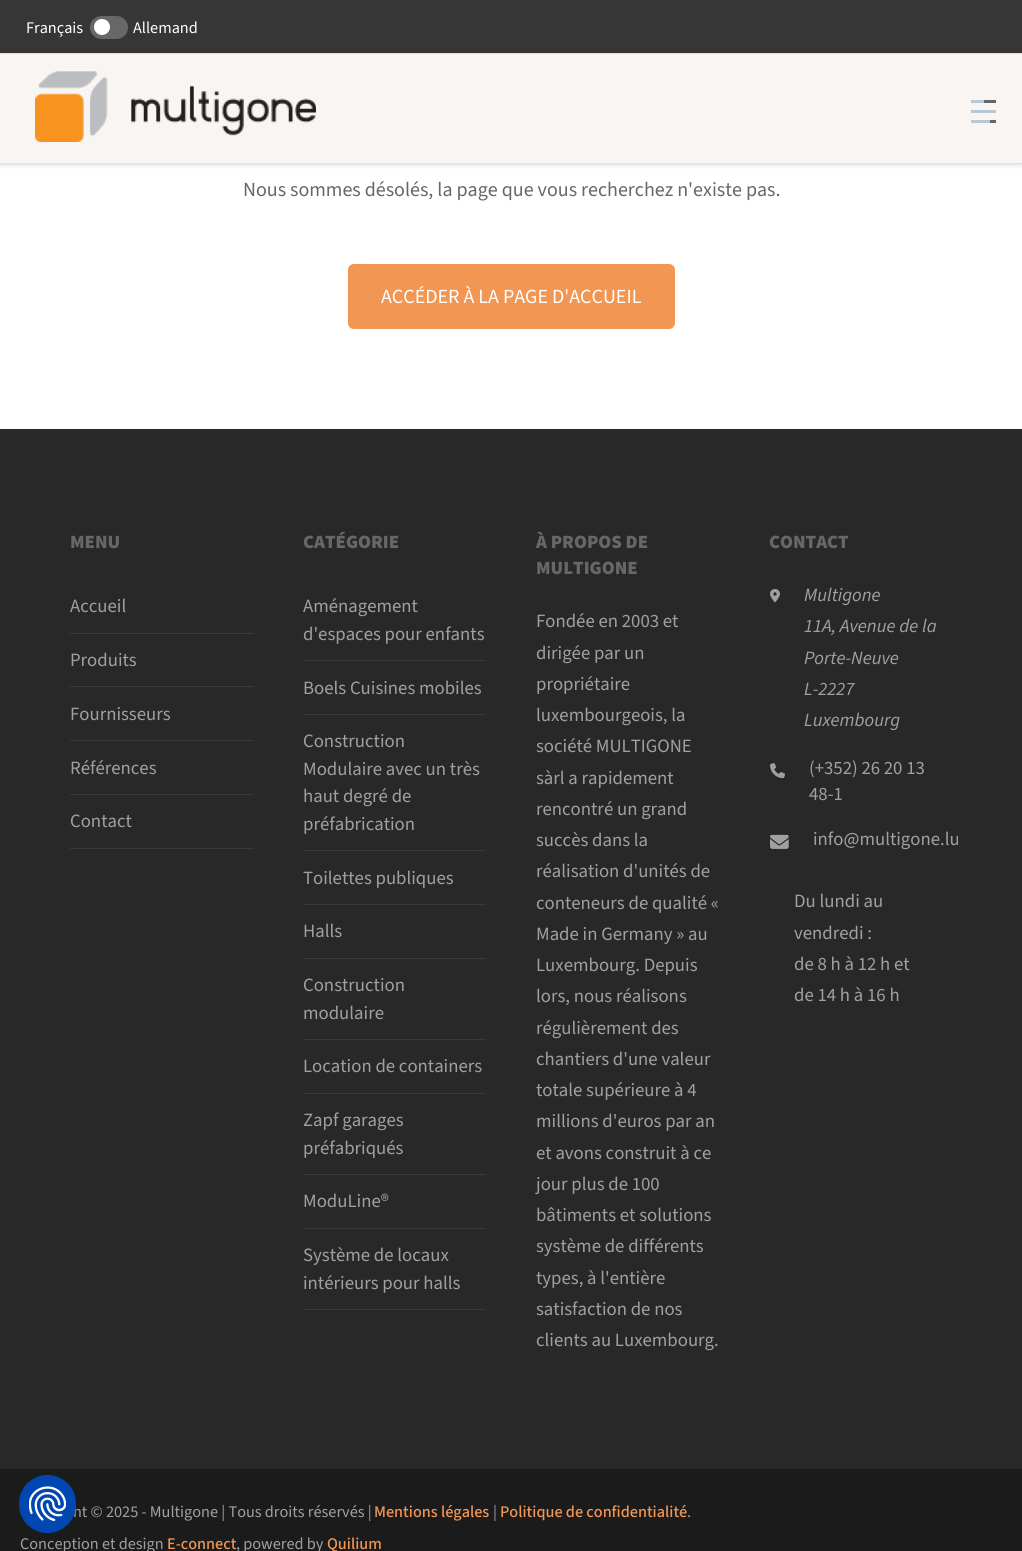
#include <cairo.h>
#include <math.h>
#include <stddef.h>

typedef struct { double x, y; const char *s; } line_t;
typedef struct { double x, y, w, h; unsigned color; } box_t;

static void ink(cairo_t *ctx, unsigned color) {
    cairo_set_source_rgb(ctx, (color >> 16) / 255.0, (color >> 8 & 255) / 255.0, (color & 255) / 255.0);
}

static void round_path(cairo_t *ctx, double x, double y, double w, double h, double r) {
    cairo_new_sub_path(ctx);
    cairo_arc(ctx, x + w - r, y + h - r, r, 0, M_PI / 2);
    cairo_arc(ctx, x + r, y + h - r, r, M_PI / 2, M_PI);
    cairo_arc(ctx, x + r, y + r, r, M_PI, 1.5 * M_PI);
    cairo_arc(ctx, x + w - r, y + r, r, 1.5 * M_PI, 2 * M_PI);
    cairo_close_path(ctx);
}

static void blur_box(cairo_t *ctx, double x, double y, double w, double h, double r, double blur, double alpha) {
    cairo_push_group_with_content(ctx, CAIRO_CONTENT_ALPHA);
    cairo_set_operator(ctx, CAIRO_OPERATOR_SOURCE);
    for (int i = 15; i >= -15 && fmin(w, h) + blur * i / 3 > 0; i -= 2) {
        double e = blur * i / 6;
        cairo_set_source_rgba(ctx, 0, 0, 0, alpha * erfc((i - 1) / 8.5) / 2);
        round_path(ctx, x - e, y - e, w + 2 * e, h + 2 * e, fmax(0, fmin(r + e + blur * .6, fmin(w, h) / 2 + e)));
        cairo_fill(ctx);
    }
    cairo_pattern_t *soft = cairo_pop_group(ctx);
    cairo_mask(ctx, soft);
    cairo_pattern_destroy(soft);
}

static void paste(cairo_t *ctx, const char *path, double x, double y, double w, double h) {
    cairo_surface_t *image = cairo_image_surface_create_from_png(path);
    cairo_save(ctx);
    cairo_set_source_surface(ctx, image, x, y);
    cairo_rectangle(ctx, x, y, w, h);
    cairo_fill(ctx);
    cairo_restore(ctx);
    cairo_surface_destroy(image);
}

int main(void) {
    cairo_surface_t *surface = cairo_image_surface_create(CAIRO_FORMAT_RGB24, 1022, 1551);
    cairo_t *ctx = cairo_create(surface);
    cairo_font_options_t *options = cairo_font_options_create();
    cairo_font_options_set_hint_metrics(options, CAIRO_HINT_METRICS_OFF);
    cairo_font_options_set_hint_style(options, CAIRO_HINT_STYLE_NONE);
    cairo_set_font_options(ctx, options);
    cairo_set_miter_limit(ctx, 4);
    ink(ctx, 0xFFFFFF);
    cairo_paint(ctx);
    ink(ctx, 0x291303);
    blur_box(ctx, 0, 54, 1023, 109, 0, 3, 0.3);
    ink(ctx, 0x363636);
    cairo_rectangle(ctx, 0, 0, 1022, 53);
    cairo_fill(ctx);
    cairo_select_font_face(ctx, "Source Sans 3", CAIRO_FONT_SLANT_NORMAL, CAIRO_FONT_WEIGHT_NORMAL);
    cairo_set_font_size(ctx, 16.25);
    ink(ctx, 0xFFFFFF);
    cairo_move_to(ctx, 26, 33);
    cairo_show_text(ctx, "Français");
    ink(ctx, 0x676767);
    round_path(ctx, 90, 16, 38, 23, 11.5);
    cairo_fill(ctx);
    ink(ctx, 0xFFFFFF);
    cairo_arc(ctx, 102, 27, 8, 0, 2 * M_PI);
    cairo_fill(ctx);
    cairo_move_to(ctx, 133, 33);
    cairo_show_text(ctx, "Allemand");
    ink(ctx, 0xF9F5F2);
    cairo_rectangle(ctx, 0, 54, 1022, 109);
    cairo_fill(ctx);
    paste(ctx, "media/1.png", 35, 71, 281, 71);
    {
        static const box_t items[] = {
            {971, 110, 25, 3, 0xB7C7D3},
            {971, 100, 13, 3, 0xB7C7D3},
            {971, 120, 19, 3, 0xB7C7D3},
            {984, 100, 12, 3, 0x676767},
            {990, 120, 6, 3, 0x676767},
        };
        for (size_t i = 0; i < sizeof items / sizeof *items; i++) {
            ink(ctx, items[i].color);
            cairo_rectangle(ctx, items[i].x, items[i].y, items[i].w, items[i].h);
            cairo_fill(ctx);
        }
    }
    cairo_set_font_size(ctx, 20);
    cairo_move_to(ctx, 243, 196);
    cairo_show_text(ctx, "Nous sommes désolés, la page que vous recherchez n'existe pas.");
    ink(ctx, 0xF29653);
    round_path(ctx, 349.5, 265.5, 324, 62, 4.5);
    cairo_fill_preserve(ctx);
    cairo_set_line_width(ctx, 3);
    cairo_stroke(ctx);
    ink(ctx, 0xFFFFFF);
    cairo_move_to(ctx, 381, 303);
    cairo_show_text(ctx, "ACCÉDER À LA PAGE D'ACCUEIL");
    ink(ctx, 0x282828);
    cairo_rectangle(ctx, 0, 429, 1022, 1040);
    cairo_fill(ctx);
    cairo_select_font_face(ctx, "Source Sans 3 Black", CAIRO_FONT_SLANT_NORMAL, CAIRO_FONT_WEIGHT_NORMAL);
    cairo_set_font_size(ctx, 18.75);
    ink(ctx, 0x676767);
    cairo_move_to(ctx, 70, 548);
    cairo_show_text(ctx, "MENU");
    ink(ctx, 0x393939);
    cairo_rectangle(ctx, 70, 633, 184, 1);
    cairo_fill(ctx);
    cairo_select_font_face(ctx, "Source Sans 3", CAIRO_FONT_SLANT_NORMAL, CAIRO_FONT_WEIGHT_NORMAL);
    ink(ctx, 0xA0A0A0);
    cairo_move_to(ctx, 70, 612);
    cairo_show_text(ctx, "Accueil");
    ink(ctx, 0x393939);
    cairo_rectangle(ctx, 70, 686, 184, 1);
    cairo_fill(ctx);
    ink(ctx, 0xA0A0A0);
    cairo_move_to(ctx, 70, 666);
    cairo_show_text(ctx, "Produits");
    ink(ctx, 0x393939);
    cairo_rectangle(ctx, 70, 740, 184, 1);
    cairo_fill(ctx);
    ink(ctx, 0xA0A0A0);
    cairo_move_to(ctx, 70, 720);
    cairo_show_text(ctx, "Fournisseurs");
    ink(ctx, 0x393939);
    cairo_rectangle(ctx, 70, 794, 184, 1);
    cairo_fill(ctx);
    ink(ctx, 0xA0A0A0);
    cairo_move_to(ctx, 70, 774);
    cairo_show_text(ctx, "Références");
    ink(ctx, 0x393939);
    cairo_rectangle(ctx, 70, 848, 184, 1);
    cairo_fill(ctx);
    ink(ctx, 0xA0A0A0);
    cairo_move_to(ctx, 70, 827);
    cairo_show_text(ctx, "Contact");
    cairo_select_font_face(ctx, "Source Sans 3 Black", CAIRO_FONT_SLANT_NORMAL, CAIRO_FONT_WEIGHT_NORMAL);
    ink(ctx, 0x676767);
    cairo_move_to(ctx, 303, 548);
    cairo_show_text(ctx, "CATÉGORIE");
    ink(ctx, 0x393939);
    cairo_rectangle(ctx, 304, 660, 182, 1);
    cairo_fill(ctx);
    cairo_select_font_face(ctx, "Source Sans 3", CAIRO_FONT_SLANT_NORMAL, CAIRO_FONT_WEIGHT_NORMAL);
    ink(ctx, 0xA0A0A0);
    cairo_move_to(ctx, 303, 612);
    cairo_show_text(ctx, "Aménagement");
    cairo_move_to(ctx, 303, 640);
    cairo_show_text(ctx, "d'espaces pour enfants");
    ink(ctx, 0x393939);
    cairo_rectangle(ctx, 304, 714, 182, 1);
    cairo_fill(ctx);
    ink(ctx, 0xA0A0A0);
    cairo_move_to(ctx, 303, 694);
    cairo_show_text(ctx, "Boels Cuisines mobiles");
    ink(ctx, 0x393939);
    cairo_rectangle(ctx, 304, 850, 182, 1);
    cairo_fill(ctx);
    ink(ctx, 0xA0A0A0);
    {
        static const line_t items[] = {
            {303, 747, "Construction"},
            {303, 775, "Modulaire avec un très"},
            {303, 802, "haut degré de"},
            {303, 830, "préfabrication"},
        };
        for (size_t i = 0; i < sizeof items / sizeof *items; i++) {
            cairo_move_to(ctx, items[i].x, items[i].y);
            cairo_show_text(ctx, items[i].s);
        }
    }
    ink(ctx, 0x393939);
    cairo_rectangle(ctx, 304, 904, 182, 1);
    cairo_fill(ctx);
    ink(ctx, 0xA0A0A0);
    cairo_move_to(ctx, 303, 884);
    cairo_show_text(ctx, "Toilettes publiques");
    ink(ctx, 0x393939);
    cairo_rectangle(ctx, 304, 958, 182, 1);
    cairo_fill(ctx);
    ink(ctx, 0xA0A0A0);
    cairo_move_to(ctx, 303, 937);
    cairo_show_text(ctx, "Halls");
    ink(ctx, 0x393939);
    cairo_rectangle(ctx, 304, 1039, 182, 1);
    cairo_fill(ctx);
    ink(ctx, 0xA0A0A0);
    cairo_move_to(ctx, 303, 991);
    cairo_show_text(ctx, "Construction");
    cairo_move_to(ctx, 303, 1019);
    cairo_show_text(ctx, "modulaire");
    ink(ctx, 0x393939);
    cairo_rectangle(ctx, 304, 1093, 182, 1);
    cairo_fill(ctx);
    ink(ctx, 0xA0A0A0);
    cairo_move_to(ctx, 303, 1072);
    cairo_show_text(ctx, "Location de containers");
    ink(ctx, 0x393939);
    cairo_rectangle(ctx, 304, 1174, 182, 1);
    cairo_fill(ctx);
    ink(ctx, 0xA0A0A0);
    cairo_move_to(ctx, 303, 1126);
    cairo_show_text(ctx, "Zapf garages");
    cairo_move_to(ctx, 303, 1154);
    cairo_show_text(ctx, "préfabriqués");
    ink(ctx, 0x393939);
    cairo_rectangle(ctx, 304, 1228, 182, 1);
    cairo_fill(ctx);
    ink(ctx, 0xA0A0A0);
    cairo_move_to(ctx, 303, 1207);
    cairo_show_text(ctx, "ModuLine®");
    ink(ctx, 0x393939);
    cairo_rectangle(ctx, 304, 1309, 182, 1);
    cairo_fill(ctx);
    ink(ctx, 0xA0A0A0);
    cairo_move_to(ctx, 303, 1261);
    cairo_show_text(ctx, "Système de locaux");
    cairo_move_to(ctx, 303, 1289);
    cairo_show_text(ctx, "intérieurs pour halls");
    cairo_select_font_face(ctx, "Source Sans 3 Black", CAIRO_FONT_SLANT_NORMAL, CAIRO_FONT_WEIGHT_NORMAL);
    ink(ctx, 0x676767);
    cairo_move_to(ctx, 536, 548);
    cairo_show_text(ctx, "À PROPOS DE");
    cairo_move_to(ctx, 536, 574);
    cairo_show_text(ctx, "MULTIGONE");
    cairo_select_font_face(ctx, "Source Sans 3", CAIRO_FONT_SLANT_NORMAL, CAIRO_FONT_WEIGHT_NORMAL);
    ink(ctx, 0xA0A0A0);
    {
        static const line_t items[] = {
            {536, 627, "Fondée en 2003 et"},
            {536, 659, "dirigée par un"},
            {536, 690, "propriétaire"},
            {536, 721, "luxembourgeois, la"},
            {536, 752, "société MULTIGONE"},
            {536, 784, "sàrl a rapidement"},
            {536, 815, "rencontré un grand"},
            {536, 846, "succès dans la"},
            {536, 877, "réalisation d'unités de"},
            {536, 909, "conteneurs de qualité «"},
            {536, 940, "Made in Germany » au"},
            {536, 971, "Luxembourg. Depuis"},
            {536, 1002, "lors, nous réalisons"},
            {536, 1034, "régulièrement des"},
            {536, 1065, "chantiers d'une valeur"},
            {536, 1096, "totale supérieure à 4"},
            {536, 1127, "millions d'euros par an"},
            {536, 1159, "et avons construit à ce"},
            {536, 1190, "jour plus de 100"},
            {536, 1221, "bâtiments et solutions"},
            {536, 1252, "système de différents"},
            {536, 1284, "types, à l'entière"},
            {536, 1315, "satisfaction de nos"},
            {536, 1346, "clients au Luxembourg."},
        };
        for (size_t i = 0; i < sizeof items / sizeof *items; i++) {
            cairo_move_to(ctx, items[i].x, items[i].y);
            cairo_show_text(ctx, items[i].s);
        }
    }
    cairo_select_font_face(ctx, "Source Sans 3 Black", CAIRO_FONT_SLANT_NORMAL, CAIRO_FONT_WEIGHT_NORMAL);
    ink(ctx, 0x676767);
    cairo_move_to(ctx, 769, 548);
    cairo_show_text(ctx, "CONTACT");
    paste(ctx, "media/2.png", 770, 589, 10, 14);
    cairo_select_font_face(ctx, "Source Sans 3", CAIRO_FONT_SLANT_ITALIC, CAIRO_FONT_WEIGHT_NORMAL);
    ink(ctx, 0xA0A0A0);
    {
        static const line_t items[] = {
            {804, 601, "Multigone"},
            {804, 632, "11A, Avenue de la"},
            {804, 664, "Porte-Neuve"},
            {804, 695, "L-2227"},
            {804, 726, "Luxembourg"},
        };
        for (size_t i = 0; i < sizeof items / sizeof *items; i++) {
            cairo_move_to(ctx, items[i].x, items[i].y);
            cairo_show_text(ctx, items[i].s);
        }
    }
    paste(ctx, "media/3.png", 770, 763, 15, 16);
    cairo_select_font_face(ctx, "Source Sans 3", CAIRO_FONT_SLANT_NORMAL, CAIRO_FONT_WEIGHT_NORMAL);
    cairo_move_to(ctx, 809, 774);
    cairo_show_text(ctx, "(+352) 26 20 13");
    cairo_move_to(ctx, 809, 800);
    cairo_show_text(ctx, "48-1");
    paste(ctx, "media/4.png", 770, 834, 19, 15);
    {
        static const line_t items[] = {
            {813, 845, "info@multigone.lu"},
            {794, 907, "Du lundi au"},
            {794, 939, "vendredi :"},
            {794, 970, "de 8 h à 12 h et"},
            {794, 1001, "de 14 h à 16 h"},
        };
        for (size_t i = 0; i < sizeof items / sizeof *items; i++) {
            cairo_move_to(ctx, items[i].x, items[i].y);
            cairo_show_text(ctx, items[i].s);
        }
    }
    ink(ctx, 0x1B1B1B);
    cairo_rectangle(ctx, 0, 1469, 1022, 82);
    cairo_fill(ctx);
    cairo_set_font_size(ctx, 16.25);
    ink(ctx, 0xA0A0A0);
    cairo_move_to(ctx, 73, 1517);
    cairo_show_text(ctx, "ht © 2025 - Multigone | Tous droits réservés |");
    cairo_select_font_face(ctx, "Source Sans 3 Medium", CAIRO_FONT_SLANT_NORMAL, CAIRO_FONT_WEIGHT_NORMAL);
    ink(ctx, 0xF29653);
    cairo_move_to(ctx, 374, 1517);
    cairo_show_text(ctx, "Mentions légales");
    cairo_select_font_face(ctx, "Source Sans 3", CAIRO_FONT_SLANT_NORMAL, CAIRO_FONT_WEIGHT_NORMAL);
    ink(ctx, 0xA0A0A0);
    cairo_move_to(ctx, 493, 1517);
    cairo_show_text(ctx, "|");
    cairo_select_font_face(ctx, "Source Sans 3 Medium", CAIRO_FONT_SLANT_NORMAL, CAIRO_FONT_WEIGHT_NORMAL);
    ink(ctx, 0xF29653);
    cairo_move_to(ctx, 500, 1517);
    cairo_show_text(ctx, "Politique de confidentialité");
    cairo_select_font_face(ctx, "Source Sans 3", CAIRO_FONT_SLANT_NORMAL, CAIRO_FONT_WEIGHT_NORMAL);
    ink(ctx, 0xA0A0A0);
    cairo_move_to(ctx, 687, 1517);
    cairo_show_text(ctx, ".");
    cairo_move_to(ctx, 20, 1549);
    cairo_show_text(ctx, "Conception et design");
    cairo_select_font_face(ctx, "Source Sans 3 Medium", CAIRO_FONT_SLANT_NORMAL, CAIRO_FONT_WEIGHT_NORMAL);
    ink(ctx, 0xF29653);
    cairo_move_to(ctx, 167, 1549);
    cairo_show_text(ctx, "E-connect");
    cairo_select_font_face(ctx, "Source Sans 3", CAIRO_FONT_SLANT_NORMAL, CAIRO_FONT_WEIGHT_NORMAL);
    ink(ctx, 0xA0A0A0);
    cairo_move_to(ctx, 236, 1549);
    cairo_show_text(ctx, ", powered by");
    cairo_select_font_face(ctx, "Source Sans 3 Medium", CAIRO_FONT_SLANT_NORMAL, CAIRO_FONT_WEIGHT_NORMAL);
    ink(ctx, 0xF29653);
    cairo_move_to(ctx, 327, 1549);
    cairo_show_text(ctx, "Quilium");
    ink(ctx, 0x0047B2);
    round_path(ctx, 19.5, 1475.5, 56, 57, 28);
    cairo_fill_preserve(ctx);
    cairo_set_line_width(ctx, 1);
    cairo_stroke(ctx);
    paste(ctx, "media/5.png", 29, 1486, 37, 36);
    cairo_surface_write_to_png(surface, "image.png");
    cairo_font_options_destroy(options);
    cairo_destroy(ctx);
    cairo_surface_destroy(surface);
    return 0;
}
